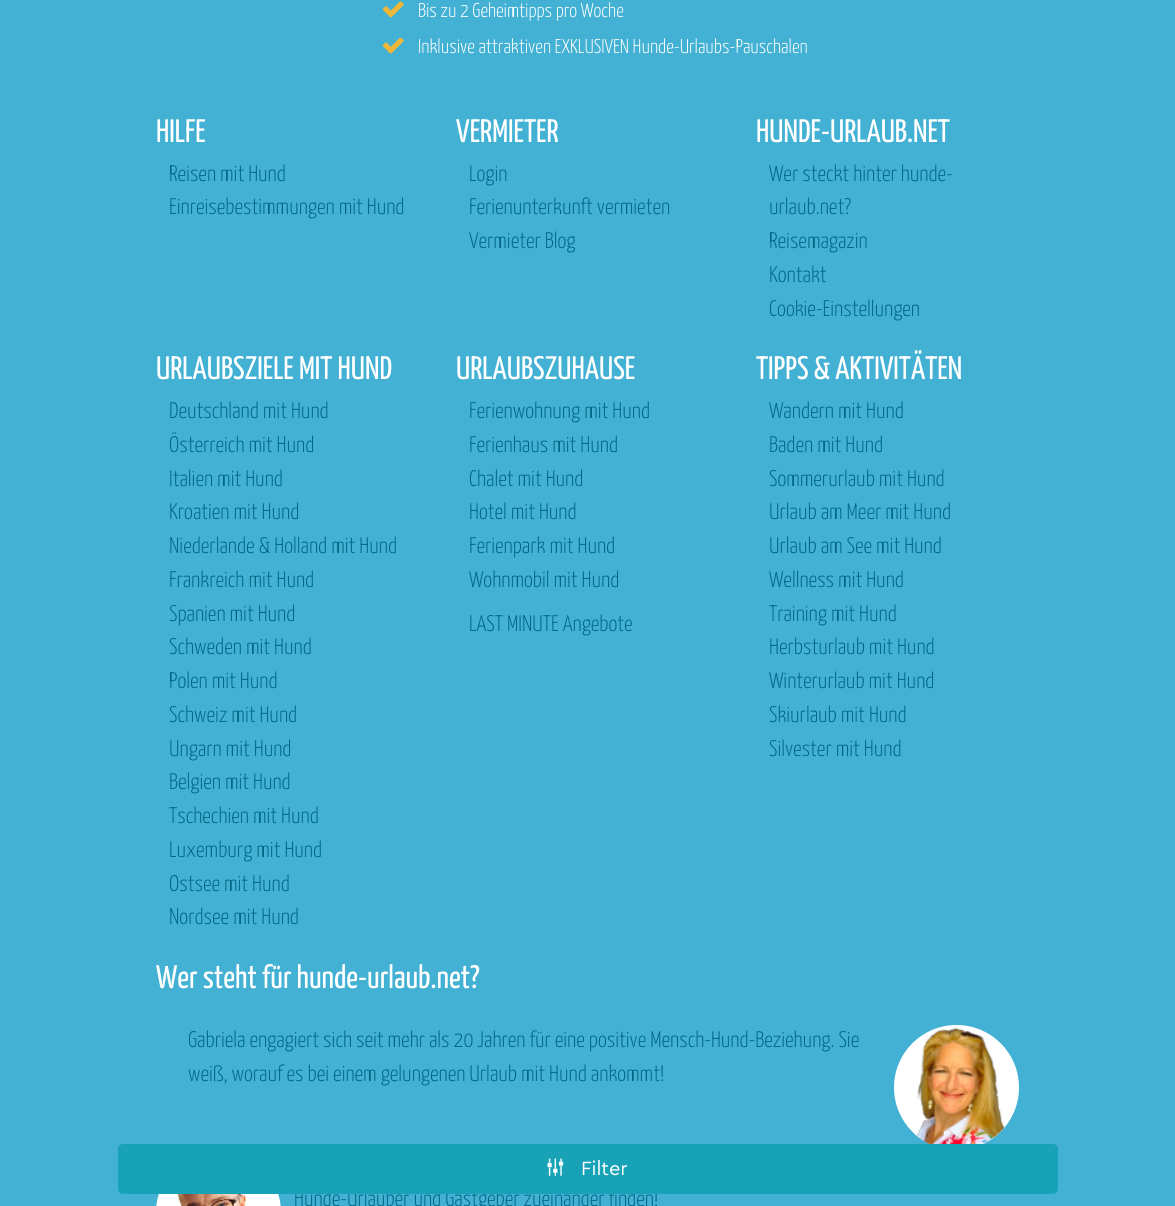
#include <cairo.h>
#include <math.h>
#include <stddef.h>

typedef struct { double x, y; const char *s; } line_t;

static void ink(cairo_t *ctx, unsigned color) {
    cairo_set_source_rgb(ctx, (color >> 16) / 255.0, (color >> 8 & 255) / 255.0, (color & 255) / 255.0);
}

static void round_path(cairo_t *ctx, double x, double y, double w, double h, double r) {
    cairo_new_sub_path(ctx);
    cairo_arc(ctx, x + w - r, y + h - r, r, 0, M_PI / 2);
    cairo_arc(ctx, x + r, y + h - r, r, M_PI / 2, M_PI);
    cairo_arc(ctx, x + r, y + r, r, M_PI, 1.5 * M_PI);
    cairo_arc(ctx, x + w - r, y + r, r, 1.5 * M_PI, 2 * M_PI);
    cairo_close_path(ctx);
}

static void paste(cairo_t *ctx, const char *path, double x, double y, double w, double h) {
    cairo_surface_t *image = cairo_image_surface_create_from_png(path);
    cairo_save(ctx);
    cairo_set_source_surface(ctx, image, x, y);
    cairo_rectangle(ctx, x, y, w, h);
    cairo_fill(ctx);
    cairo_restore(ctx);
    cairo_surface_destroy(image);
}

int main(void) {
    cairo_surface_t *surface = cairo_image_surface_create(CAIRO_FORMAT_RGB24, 1175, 1206);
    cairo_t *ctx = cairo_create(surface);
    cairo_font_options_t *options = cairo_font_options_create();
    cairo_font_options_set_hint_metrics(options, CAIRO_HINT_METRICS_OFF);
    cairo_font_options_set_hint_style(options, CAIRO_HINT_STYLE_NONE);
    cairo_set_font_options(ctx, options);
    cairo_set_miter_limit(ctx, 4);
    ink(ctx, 0x43B1D4);
    cairo_paint(ctx);
    paste(ctx, "media/1.png", 382, 1, 22, 17);
    cairo_select_font_face(ctx, "Yanone Kaffeesatz ExtraLight", CAIRO_FONT_SLANT_NORMAL, CAIRO_FONT_WEIGHT_NORMAL);
    cairo_set_font_size(ctx, 20);
    ink(ctx, 0xFFFFFF);
    cairo_move_to(ctx, 418, 17);
    cairo_show_text(ctx, "Bis zu 2 Geheimtipps pro Woche");
    paste(ctx, "media/2.png", 382, 37, 22, 17);
    cairo_move_to(ctx, 418, 53);
    cairo_show_text(ctx, "Inklusive attraktiven EXKLUSIVEN Hunde-Urlaubs-Pauschalen");
    cairo_select_font_face(ctx, "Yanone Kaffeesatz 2 ExtraLight", CAIRO_FONT_SLANT_NORMAL, CAIRO_FONT_WEIGHT_NORMAL);
    cairo_set_font_size(ctx, 32.5);
    cairo_move_to(ctx, 156, 142);
    cairo_show_text(ctx, "HILFE");
    cairo_select_font_face(ctx, "Yanone Kaffeesatz ExtraLight", CAIRO_FONT_SLANT_NORMAL, CAIRO_FONT_WEIGHT_NORMAL);
    cairo_set_font_size(ctx, 22.5);
    ink(ctx, 0x016686);
    cairo_move_to(ctx, 169, 181);
    cairo_show_text(ctx, "Reisen mit Hund");
    cairo_move_to(ctx, 169, 214);
    cairo_show_text(ctx, "Einreisebestimmungen mit Hund");
    cairo_select_font_face(ctx, "Yanone Kaffeesatz 2 ExtraLight", CAIRO_FONT_SLANT_NORMAL, CAIRO_FONT_WEIGHT_NORMAL);
    cairo_set_font_size(ctx, 32.5);
    ink(ctx, 0xFFFFFF);
    cairo_move_to(ctx, 456, 142);
    cairo_show_text(ctx, "VERMIETER");
    cairo_select_font_face(ctx, "Yanone Kaffeesatz ExtraLight", CAIRO_FONT_SLANT_NORMAL, CAIRO_FONT_WEIGHT_NORMAL);
    cairo_set_font_size(ctx, 22.5);
    ink(ctx, 0x016686);
    {
        static const line_t items[] = {
            {469, 181, "Login"},
            {469, 214, "Ferienunterkunft vermieten"},
            {469, 248, "Vermieter Blog"},
        };
        for (size_t i = 0; i < sizeof items / sizeof *items; i++) {
            cairo_move_to(ctx, items[i].x, items[i].y);
            cairo_show_text(ctx, items[i].s);
        }
    }
    cairo_select_font_face(ctx, "Yanone Kaffeesatz 2 ExtraLight", CAIRO_FONT_SLANT_NORMAL, CAIRO_FONT_WEIGHT_NORMAL);
    cairo_set_font_size(ctx, 32.5);
    ink(ctx, 0xFFFFFF);
    cairo_move_to(ctx, 756, 142);
    cairo_show_text(ctx, "HUNDE-URLAUB.NET");
    cairo_select_font_face(ctx, "Yanone Kaffeesatz ExtraLight", CAIRO_FONT_SLANT_NORMAL, CAIRO_FONT_WEIGHT_NORMAL);
    cairo_set_font_size(ctx, 22.5);
    ink(ctx, 0x016686);
    {
        static const line_t items[] = {
            {769, 181, "Wer steckt hinter hunde-"},
            {769, 214, "urlaub.net?"},
            {769, 248, "Reisemagazin"},
            {769, 282, "Kontakt"},
            {769, 316, "Cookie-Einstellungen"},
        };
        for (size_t i = 0; i < sizeof items / sizeof *items; i++) {
            cairo_move_to(ctx, items[i].x, items[i].y);
            cairo_show_text(ctx, items[i].s);
        }
    }
    cairo_select_font_face(ctx, "Yanone Kaffeesatz 2 ExtraLight", CAIRO_FONT_SLANT_NORMAL, CAIRO_FONT_WEIGHT_NORMAL);
    cairo_set_font_size(ctx, 32.5);
    ink(ctx, 0xFFFFFF);
    cairo_move_to(ctx, 156, 379);
    cairo_show_text(ctx, "URLAUBSZIELE MIT HUND");
    cairo_select_font_face(ctx, "Yanone Kaffeesatz ExtraLight", CAIRO_FONT_SLANT_NORMAL, CAIRO_FONT_WEIGHT_NORMAL);
    cairo_set_font_size(ctx, 22.5);
    ink(ctx, 0x016686);
    {
        static const line_t items[] = {
            {169, 418, "Deutschland mit Hund"},
            {169, 452, "Österreich mit Hund"},
            {169, 486, "Italien mit Hund"},
            {169, 519, "Kroatien mit Hund"},
            {169, 553, "Niederlande & Holland mit Hund"},
            {169, 587, "Frankreich mit Hund"},
            {169, 621, "Spanien mit Hund"},
            {169, 654, "Schweden mit Hund"},
            {169, 688, "Polen mit Hund"},
            {169, 722, "Schweiz mit Hund"},
            {169, 756, "Ungarn mit Hund"},
            {169, 789, "Belgien mit Hund"},
            {169, 823, "Tschechien mit Hund"},
            {169, 857, "Luxemburg mit Hund"},
            {169, 891, "Ostsee mit Hund"},
            {169, 924, "Nordsee mit Hund"},
        };
        for (size_t i = 0; i < sizeof items / sizeof *items; i++) {
            cairo_move_to(ctx, items[i].x, items[i].y);
            cairo_show_text(ctx, items[i].s);
        }
    }
    cairo_select_font_face(ctx, "Yanone Kaffeesatz 2 ExtraLight", CAIRO_FONT_SLANT_NORMAL, CAIRO_FONT_WEIGHT_NORMAL);
    cairo_set_font_size(ctx, 32.5);
    ink(ctx, 0xFFFFFF);
    cairo_move_to(ctx, 456, 379);
    cairo_show_text(ctx, "URLAUBSZUHAUSE");
    cairo_select_font_face(ctx, "Yanone Kaffeesatz ExtraLight", CAIRO_FONT_SLANT_NORMAL, CAIRO_FONT_WEIGHT_NORMAL);
    cairo_set_font_size(ctx, 22.5);
    ink(ctx, 0x016686);
    {
        static const line_t items[] = {
            {469, 418, "Ferienwohnung mit Hund"},
            {469, 452, "Ferienhaus mit Hund"},
            {469, 486, "Chalet mit Hund"},
            {469, 519, "Hotel mit Hund"},
            {469, 553, "Ferienpark mit Hund"},
            {469, 587, "Wohnmobil mit Hund"},
            {469, 631, "LAST MINUTE Angebote"},
        };
        for (size_t i = 0; i < sizeof items / sizeof *items; i++) {
            cairo_move_to(ctx, items[i].x, items[i].y);
            cairo_show_text(ctx, items[i].s);
        }
    }
    cairo_select_font_face(ctx, "Yanone Kaffeesatz 2 ExtraLight", CAIRO_FONT_SLANT_NORMAL, CAIRO_FONT_WEIGHT_NORMAL);
    cairo_set_font_size(ctx, 32.5);
    ink(ctx, 0xFFFFFF);
    cairo_move_to(ctx, 756, 379);
    cairo_show_text(ctx, "TIPPS & AKTIVITÄTEN");
    cairo_select_font_face(ctx, "Yanone Kaffeesatz ExtraLight", CAIRO_FONT_SLANT_NORMAL, CAIRO_FONT_WEIGHT_NORMAL);
    cairo_set_font_size(ctx, 22.5);
    ink(ctx, 0x016686);
    {
        static const line_t items[] = {
            {769, 418, "Wandern mit Hund"},
            {769, 452, "Baden mit Hund"},
            {769, 486, "Sommerurlaub mit Hund"},
            {769, 519, "Urlaub am Meer mit Hund"},
            {769, 553, "Urlaub am See mit Hund"},
            {769, 587, "Wellness mit Hund"},
            {769, 621, "Training mit Hund"},
            {769, 654, "Herbsturlaub mit Hund"},
            {769, 688, "Winterurlaub mit Hund"},
            {769, 722, "Skiurlaub mit Hund"},
            {769, 756, "Silvester mit Hund"},
        };
        for (size_t i = 0; i < sizeof items / sizeof *items; i++) {
            cairo_move_to(ctx, items[i].x, items[i].y);
            cairo_show_text(ctx, items[i].s);
        }
    }
    cairo_select_font_face(ctx, "Yanone Kaffeesatz 2 ExtraLight", CAIRO_FONT_SLANT_NORMAL, CAIRO_FONT_WEIGHT_NORMAL);
    cairo_set_font_size(ctx, 32.5);
    ink(ctx, 0xFFFFFF);
    cairo_move_to(ctx, 156, 988);
    cairo_show_text(ctx, "Wer steht für hunde-urlaub.net?");
    cairo_select_font_face(ctx, "Yanone Kaffeesatz ExtraLight", CAIRO_FONT_SLANT_NORMAL, CAIRO_FONT_WEIGHT_NORMAL);
    cairo_set_font_size(ctx, 22.5);
    ink(ctx, 0x016686);
    cairo_move_to(ctx, 188, 1047);
    cairo_show_text(ctx, "Gabriela engagiert sich seit mehr als 20 Jahren für eine positive Mensch-Hund-Beziehung. Sie");
    cairo_move_to(ctx, 188, 1081);
    cairo_show_text(ctx, "weiß, worauf es bei einem gelungenen Urlaub mit Hund ankommt!");
    ink(ctx, 0xFFFFFF);
    cairo_new_path(ctx);
    cairo_arc(ctx, 956.5, 1087.5, 62.5, 0, 2 * M_PI);
    cairo_fill(ctx);
    paste(ctx, "media/3.png", 914, 1025, 91, 119);
    round_path(ctx, 156, 1150, 125, 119, 62.5);
    cairo_fill(ctx);
    paste(ctx, "media/4.png", 177, 1194, 70, 12);
    ink(ctx, 0x016686);
    cairo_move_to(ctx, 294, 1206);
    cairo_show_text(ctx, "Hunde-Urlauber und Gastgeber zueinander finden!");
    ink(ctx, 0x17A2B8);
    round_path(ctx, 119.5, 1145.5, 937, 47, 3.5);
    cairo_fill_preserve(ctx);
    cairo_set_line_width(ctx, 3);
    cairo_stroke(ctx);
    paste(ctx, "media/5.png", 547, 1158, 17, 18);
    cairo_select_font_face(ctx, "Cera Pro", CAIRO_FONT_SLANT_NORMAL, CAIRO_FONT_WEIGHT_NORMAL);
    cairo_set_font_size(ctx, 20);
    ink(ctx, 0xFFFFFF);
    cairo_move_to(ctx, 581, 1175);
    cairo_show_text(ctx, "Filter");
    cairo_surface_write_to_png(surface, "image.png");
    cairo_font_options_destroy(options);
    cairo_destroy(ctx);
    cairo_surface_destroy(surface);
    return 0;
}
